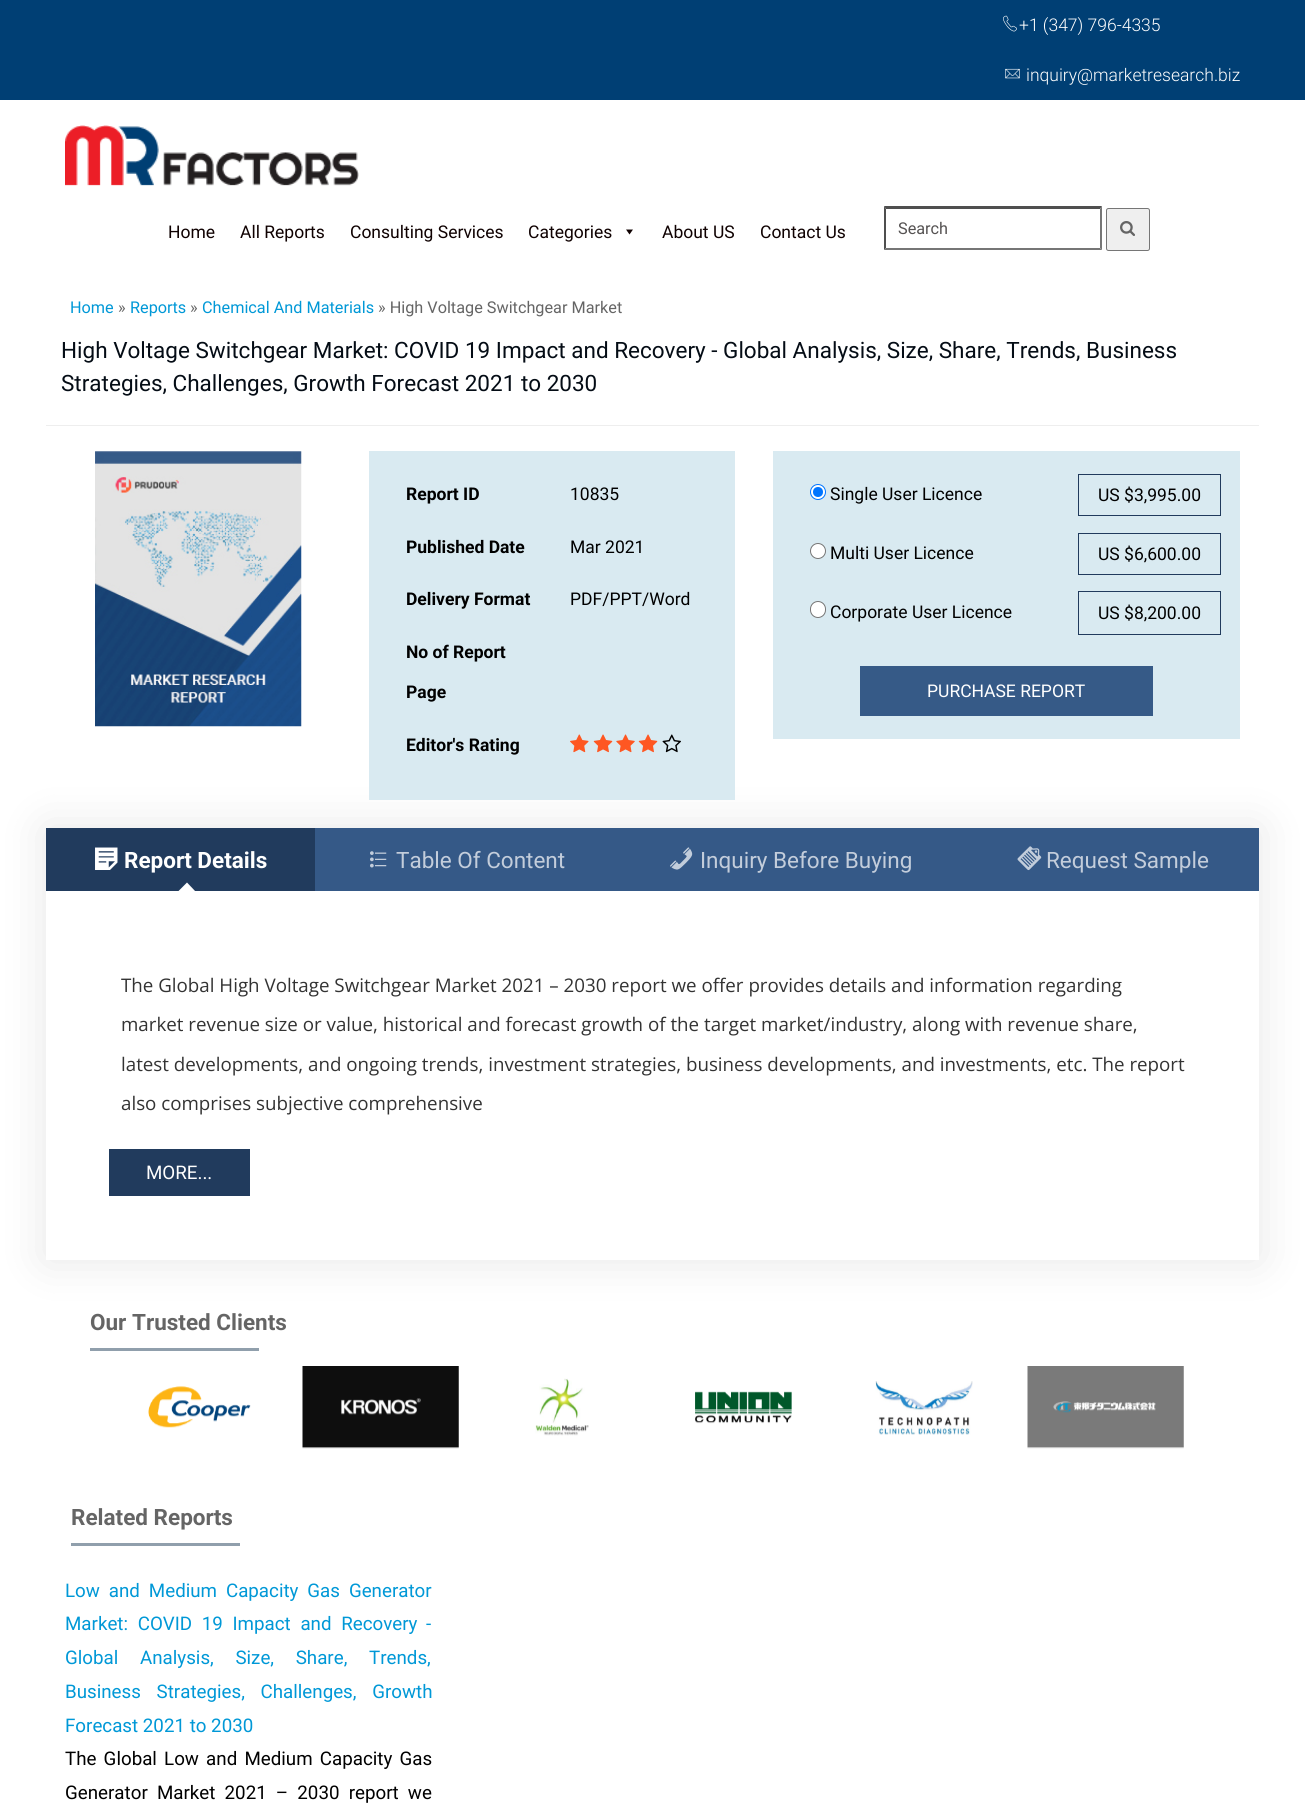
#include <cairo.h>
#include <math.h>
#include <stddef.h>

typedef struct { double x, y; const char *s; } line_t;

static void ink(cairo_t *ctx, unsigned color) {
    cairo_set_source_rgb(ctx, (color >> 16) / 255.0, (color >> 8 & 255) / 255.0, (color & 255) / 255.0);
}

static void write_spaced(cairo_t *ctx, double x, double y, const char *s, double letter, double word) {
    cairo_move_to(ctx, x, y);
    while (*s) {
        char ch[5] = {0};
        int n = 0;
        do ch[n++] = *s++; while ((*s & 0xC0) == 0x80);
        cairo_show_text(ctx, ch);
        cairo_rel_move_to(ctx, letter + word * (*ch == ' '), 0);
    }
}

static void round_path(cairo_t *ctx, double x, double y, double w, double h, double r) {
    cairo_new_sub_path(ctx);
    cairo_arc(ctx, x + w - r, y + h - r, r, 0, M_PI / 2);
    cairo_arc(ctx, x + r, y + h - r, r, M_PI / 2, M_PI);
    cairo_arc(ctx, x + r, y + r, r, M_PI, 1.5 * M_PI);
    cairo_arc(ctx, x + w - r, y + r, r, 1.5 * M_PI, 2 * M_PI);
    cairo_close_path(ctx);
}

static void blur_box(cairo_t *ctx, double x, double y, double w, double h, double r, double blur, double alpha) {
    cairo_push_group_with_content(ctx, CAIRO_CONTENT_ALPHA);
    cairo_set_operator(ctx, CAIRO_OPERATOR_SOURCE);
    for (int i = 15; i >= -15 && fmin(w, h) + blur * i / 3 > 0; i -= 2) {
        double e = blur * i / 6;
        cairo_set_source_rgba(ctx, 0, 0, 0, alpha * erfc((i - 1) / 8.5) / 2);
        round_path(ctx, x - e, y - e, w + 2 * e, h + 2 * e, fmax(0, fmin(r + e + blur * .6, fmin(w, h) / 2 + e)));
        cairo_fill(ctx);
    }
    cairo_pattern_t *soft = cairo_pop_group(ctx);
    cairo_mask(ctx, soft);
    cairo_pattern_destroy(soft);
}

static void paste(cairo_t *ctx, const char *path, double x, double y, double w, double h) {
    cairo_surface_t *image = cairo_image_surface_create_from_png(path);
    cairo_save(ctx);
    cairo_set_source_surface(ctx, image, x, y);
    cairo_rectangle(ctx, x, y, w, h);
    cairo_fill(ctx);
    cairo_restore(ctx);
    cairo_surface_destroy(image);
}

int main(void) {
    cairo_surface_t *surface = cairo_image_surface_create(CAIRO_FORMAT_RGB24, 1305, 1816);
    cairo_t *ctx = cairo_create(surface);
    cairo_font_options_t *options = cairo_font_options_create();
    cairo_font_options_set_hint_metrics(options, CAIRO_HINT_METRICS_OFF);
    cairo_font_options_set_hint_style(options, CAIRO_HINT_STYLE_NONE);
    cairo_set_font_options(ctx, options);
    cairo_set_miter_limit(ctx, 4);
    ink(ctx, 0xFFFFFF);
    cairo_paint(ctx);
    ink(ctx, 0x003F74);
    cairo_rectangle(ctx, 0, 0, 1305, 100);
    cairo_fill(ctx);
    paste(ctx, "media/1.png", 1003, 15, 14, 17);
    cairo_select_font_face(ctx, "Roboto Light", CAIRO_FONT_SLANT_NORMAL, CAIRO_FONT_WEIGHT_NORMAL);
    cairo_set_font_size(ctx, 17.5);
    ink(ctx, 0xFFFFFF);
    cairo_move_to(ctx, 1019, 31);
    cairo_show_text(ctx, "+1 (347) 796-4335");
    paste(ctx, "media/2.png", 1005, 68, 15, 11);
    cairo_move_to(ctx, 1026, 81);
    cairo_show_text(ctx, "inquiry@marketresearch.biz");
    paste(ctx, "media/3.png", 65, 125, 294, 61);
    cairo_select_font_face(ctx, "Roboto", CAIRO_FONT_SLANT_NORMAL, CAIRO_FONT_WEIGHT_NORMAL);
    ink(ctx, 0x0F0101);
    {
        static const line_t items[] = {
            {168, 238, "Home"},
            {240, 238, "All Reports"},
            {350, 238, "Consulting Services"},
            {528, 238, "Categories"},
        };
        for (size_t i = 0; i < sizeof items / sizeof *items; i++) {
            cairo_move_to(ctx, items[i].x, items[i].y);
            cairo_show_text(ctx, items[i].s);
        }
    }
    cairo_new_path(ctx);
    cairo_move_to(ctx, 633, 229.5);
    cairo_line_to(ctx, 629.5, 234.5);
    cairo_line_to(ctx, 626, 229.5);
    cairo_close_path(ctx);
    cairo_fill(ctx);
    cairo_move_to(ctx, 662, 238);
    cairo_show_text(ctx, "About US");
    cairo_move_to(ctx, 760, 238);
    cairo_show_text(ctx, "Contact Us");
    ink(ctx, 0x4F4F4F);
    cairo_new_path(ctx);
    cairo_move_to(ctx, 884, 206);
    cairo_line_to(ctx, 1102, 206);
    cairo_line_to(ctx, 1100, 209);
    cairo_line_to(ctx, 886, 209);
    cairo_close_path(ctx);
    cairo_fill(ctx);
    ink(ctx, 0x767676);
    cairo_new_path(ctx);
    cairo_move_to(ctx, 1102, 206);
    cairo_line_to(ctx, 1102, 250);
    cairo_line_to(ctx, 1100, 248);
    cairo_line_to(ctx, 1100, 209);
    cairo_close_path(ctx);
    cairo_fill(ctx);
    cairo_new_path(ctx);
    cairo_move_to(ctx, 1102, 250);
    cairo_line_to(ctx, 884, 250);
    cairo_line_to(ctx, 886, 248);
    cairo_line_to(ctx, 1100, 248);
    cairo_close_path(ctx);
    cairo_fill(ctx);
    ink(ctx, 0x4F4F4F);
    cairo_new_path(ctx);
    cairo_move_to(ctx, 884, 250);
    cairo_line_to(ctx, 884, 206);
    cairo_line_to(ctx, 886, 209);
    cairo_line_to(ctx, 886, 248);
    cairo_close_path(ctx);
    cairo_fill(ctx);
    cairo_set_font_size(ctx, 16.25);
    ink(ctx, 0x555252);
    cairo_move_to(ctx, 898, 234);
    cairo_show_text(ctx, "Search");
    ink(ctx, 0xEFEFEF);
    round_path(ctx, 1106.5, 208.5, 43, 42, 2);
    cairo_fill_preserve(ctx);
    ink(ctx, 0x767676);
    cairo_set_line_width(ctx, 1);
    cairo_stroke(ctx);
    paste(ctx, "media/4.png", 1120, 221, 15, 15);
    ink(ctx, 0x0098D7);
    cairo_move_to(ctx, 70, 313);
    cairo_show_text(ctx, "Home");
    ink(ctx, 0x656565);
    cairo_move_to(ctx, 118, 313);
    cairo_show_text(ctx, "»");
    ink(ctx, 0x0098D7);
    cairo_move_to(ctx, 130, 313);
    cairo_show_text(ctx, "Reports");
    ink(ctx, 0x656565);
    cairo_move_to(ctx, 190, 313);
    cairo_show_text(ctx, "»");
    ink(ctx, 0x0098D7);
    cairo_move_to(ctx, 202, 313);
    cairo_show_text(ctx, "Chemical And Materials");
    ink(ctx, 0x656565);
    cairo_move_to(ctx, 378, 313);
    cairo_show_text(ctx, "» High Voltage Switchgear Market");
    cairo_set_font_size(ctx, 22.5);
    ink(ctx, 0x040C15);
    cairo_move_to(ctx, 61, 358);
    cairo_show_text(ctx, "High Voltage Switchgear Market: COVID 19 Impact and Recovery - Global Analysis, Size, Share, Trends, Business");
    cairo_move_to(ctx, 61, 391);
    cairo_show_text(ctx, "Strategies, Challenges, Growth Forecast 2021 to 2030");
    ink(ctx, 0xEEEEEE);
    cairo_rectangle(ctx, 46, 425, 1213, 1);
    cairo_fill(ctx);
    paste(ctx, "media/5.png", 95, 451, 207, 276);
    cairo_save(ctx);
    cairo_set_fill_rule(ctx, CAIRO_FILL_RULE_EVEN_ODD);
    cairo_new_path(ctx);
    cairo_move_to(ctx, 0, 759);
    cairo_line_to(ctx, 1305, 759);
    cairo_line_to(ctx, 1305, 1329);
    cairo_line_to(ctx, 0, 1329);
    cairo_close_path(ctx);
    cairo_move_to(ctx, 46, 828);
    cairo_line_to(ctx, 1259, 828);
    cairo_line_to(ctx, 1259, 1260);
    cairo_line_to(ctx, 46, 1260);
    cairo_close_path(ctx);
    cairo_clip(ctx);
    ink(ctx, 0x000000);
    blur_box(ctx, 46, 828, 1213, 432, 0, 22.5, 0.1);
    cairo_restore(ctx);
    ink(ctx, 0xD9EAF1);
    cairo_rectangle(ctx, 369, 451, 366, 349);
    cairo_fill(ctx);
    cairo_select_font_face(ctx, "Roboto", CAIRO_FONT_SLANT_NORMAL, CAIRO_FONT_WEIGHT_BOLD);
    cairo_set_font_size(ctx, 17.5);
    ink(ctx, 0x000000);
    cairo_move_to(ctx, 406, 500);
    cairo_show_text(ctx, "Report ID");
    cairo_select_font_face(ctx, "Roboto", CAIRO_FONT_SLANT_NORMAL, CAIRO_FONT_WEIGHT_NORMAL);
    cairo_move_to(ctx, 570, 500);
    cairo_show_text(ctx, "10835");
    cairo_select_font_face(ctx, "Roboto", CAIRO_FONT_SLANT_NORMAL, CAIRO_FONT_WEIGHT_BOLD);
    cairo_move_to(ctx, 406, 553);
    cairo_show_text(ctx, "Published Date");
    cairo_select_font_face(ctx, "Roboto", CAIRO_FONT_SLANT_NORMAL, CAIRO_FONT_WEIGHT_NORMAL);
    cairo_move_to(ctx, 570, 553);
    cairo_show_text(ctx, "Mar 2021");
    cairo_select_font_face(ctx, "Roboto", CAIRO_FONT_SLANT_NORMAL, CAIRO_FONT_WEIGHT_BOLD);
    cairo_move_to(ctx, 406, 605);
    cairo_show_text(ctx, "Delivery Format");
    cairo_select_font_face(ctx, "Roboto", CAIRO_FONT_SLANT_NORMAL, CAIRO_FONT_WEIGHT_NORMAL);
    cairo_move_to(ctx, 570, 605);
    cairo_show_text(ctx, "PDF/PPT/Word");
    cairo_select_font_face(ctx, "Roboto", CAIRO_FONT_SLANT_NORMAL, CAIRO_FONT_WEIGHT_BOLD);
    {
        static const line_t items[] = {
            {406, 658, "No of Report"},
            {406, 698, "Page"},
            {406, 751, "Editor's Rating"},
        };
        for (size_t i = 0; i < sizeof items / sizeof *items; i++) {
            cairo_move_to(ctx, items[i].x, items[i].y);
            cairo_show_text(ctx, items[i].s);
        }
    }
    paste(ctx, "media/6.png", 570, 734, 19, 19);
    paste(ctx, "media/7.png", 593, 734, 20, 19);
    paste(ctx, "media/8.png", 616, 734, 19, 19);
    paste(ctx, "media/7.png", 638, 734, 20, 19);
    paste(ctx, "media/9.png", 662, 734, 19, 19);
    ink(ctx, 0xD9EAF1);
    cairo_rectangle(ctx, 773, 451, 467, 288);
    cairo_fill(ctx);
    ink(ctx, 0xFFFFFF);
    cairo_arc(ctx, 818, 492, 7.5, 0, 2 * M_PI);
    cairo_fill_preserve(ctx);
    ink(ctx, 0x0075FF);
    cairo_stroke(ctx);
    cairo_arc(ctx, 818, 492, 5, 0, 2 * M_PI);
    cairo_fill(ctx);
    cairo_select_font_face(ctx, "Roboto", CAIRO_FONT_SLANT_NORMAL, CAIRO_FONT_WEIGHT_NORMAL);
    ink(ctx, 0x000000);
    cairo_move_to(ctx, 830, 500);
    cairo_show_text(ctx, "Single User Licence");
    cairo_rectangle(ctx, 1078.5, 474.5, 142, 41);
    ink(ctx, 0x213B5D);
    cairo_stroke(ctx);
    ink(ctx, 0x000000);
    cairo_move_to(ctx, 1098, 501);
    cairo_show_text(ctx, "US $3,995.00");
    ink(ctx, 0xFFFFFF);
    cairo_new_path(ctx);
    cairo_arc(ctx, 818, 551, 7.5, 0, 2 * M_PI);
    cairo_fill_preserve(ctx);
    ink(ctx, 0x767676);
    cairo_stroke(ctx);
    ink(ctx, 0x000000);
    cairo_move_to(ctx, 830, 559);
    cairo_show_text(ctx, "Multi User Licence");
    cairo_rectangle(ctx, 1078.5, 533.5, 142, 41);
    ink(ctx, 0x213B5D);
    cairo_stroke(ctx);
    ink(ctx, 0x000000);
    cairo_move_to(ctx, 1098, 560);
    cairo_show_text(ctx, "US $6,600.00");
    ink(ctx, 0xFFFFFF);
    round_path(ctx, 810.5, 601.5, 15, 16, 7.5);
    cairo_fill_preserve(ctx);
    ink(ctx, 0x767676);
    cairo_stroke(ctx);
    ink(ctx, 0x000000);
    cairo_move_to(ctx, 830, 618);
    cairo_show_text(ctx, "Corporate User Licence");
    cairo_rectangle(ctx, 1078.5, 591.5, 142, 43);
    ink(ctx, 0x213B5D);
    cairo_stroke(ctx);
    ink(ctx, 0x000000);
    cairo_move_to(ctx, 1098, 619);
    cairo_show_text(ctx, "US $8,200.00");
    ink(ctx, 0x365A87);
    cairo_rectangle(ctx, 860, 666, 293, 50);
    cairo_fill(ctx);
    ink(ctx, 0xFFFFFF);
    cairo_move_to(ctx, 927, 697);
    cairo_show_text(ctx, "PURCHASE REPORT");
    cairo_set_source_rgba(ctx, 0.082, 0.247, 0.455, 0.86);
    cairo_rectangle(ctx, 315, 828, 944, 63);
    cairo_fill(ctx);
    ink(ctx, 0x213B5D);
    cairo_rectangle(ctx, 46, 828, 269, 63);
    cairo_fill(ctx);
    paste(ctx, "media/10.png", 95, 847, 23, 23);
    cairo_select_font_face(ctx, "Roboto", CAIRO_FONT_SLANT_NORMAL, CAIRO_FONT_WEIGHT_BOLD);
    cairo_set_font_size(ctx, 22.5);
    ink(ctx, 0xFFFFFF);
    cairo_move_to(ctx, 124, 868);
    cairo_show_text(ctx, "Report Details");
    cairo_new_path(ctx);
    cairo_move_to(ctx, 187, 882.5);
    cairo_line_to(ctx, 195.5, 891.5);
    cairo_line_to(ctx, 187, 900);
    cairo_line_to(ctx, 178, 891.5);
    cairo_close_path(ctx);
    cairo_fill(ctx);
    paste(ctx, "media/11.png", 370, 851, 17, 17);
    cairo_select_font_face(ctx, "Roboto", CAIRO_FONT_SLANT_NORMAL, CAIRO_FONT_WEIGHT_NORMAL);
    ink(ctx, 0xC3CDDB);
    cairo_move_to(ctx, 396, 868);
    cairo_show_text(ctx, "Table Of Content");
    paste(ctx, "media/12.png", 670, 847, 23, 23);
    cairo_move_to(ctx, 700, 868);
    cairo_show_text(ctx, "Inquiry Before Buying");
    paste(ctx, "media/13.png", 1017, 846, 25, 25);
    cairo_move_to(ctx, 1046, 868);
    cairo_show_text(ctx, "Request Sample");
    cairo_select_font_face(ctx, "Open Sans", CAIRO_FONT_SLANT_NORMAL, CAIRO_FONT_WEIGHT_NORMAL);
    cairo_set_font_size(ctx, 18.75);
    ink(ctx, 0x333333);
    {
        static const line_t items[] = {
            {121, 992, "The Global High Voltage Switchgear Market 2021 – 2030 report we offer provides details and information regarding"},
            {121, 1031, "market revenue size or value, historical and forecast growth of the target market/industry, along with revenue share,"},
            {121, 1071, "latest developments, and ongoing trends, investment strategies, business developments, and investments, etc. The report"},
            {121, 1110, "also comprises subjective comprehensive"},
        };
        for (size_t i = 0; i < sizeof items / sizeof *items; i++) {
            cairo_move_to(ctx, items[i].x, items[i].y);
            cairo_show_text(ctx, items[i].s);
        }
    }
    ink(ctx, 0x213B5D);
    cairo_rectangle(ctx, 109, 1149, 141, 47);
    cairo_fill(ctx);
    cairo_select_font_face(ctx, "Roboto", CAIRO_FONT_SLANT_NORMAL, CAIRO_FONT_WEIGHT_NORMAL);
    ink(ctx, 0xFFFFFF);
    cairo_move_to(ctx, 146, 1179);
    cairo_show_text(ctx, "MORE...");
    cairo_select_font_face(ctx, "Roboto", CAIRO_FONT_SLANT_NORMAL, CAIRO_FONT_WEIGHT_BOLD);
    cairo_set_font_size(ctx, 22.5);
    ink(ctx, 0x656565);
    cairo_move_to(ctx, 90, 1330);
    cairo_show_text(ctx, "Our Trusted Clients");
    ink(ctx, 0x909FAC);
    cairo_rectangle(ctx, 90, 1348, 169, 3);
    cairo_fill(ctx);
    paste(ctx, "media/14.png", 148, 1386, 103, 42);
    paste(ctx, "media/15.png", 302, 1366, 157, 83);
    paste(ctx, "media/16.png", 535, 1378, 54, 58);
    paste(ctx, "media/17.png", 695, 1391, 97, 33);
    paste(ctx, "media/18.png", 875, 1381, 98, 54);
    paste(ctx, "media/19.png", 1027, 1366, 157, 83);
    ink(ctx, 0x656565);
    cairo_move_to(ctx, 71, 1525);
    cairo_show_text(ctx, "Related Reports");
    ink(ctx, 0x909FAC);
    cairo_rectangle(ctx, 71, 1543, 169, 3);
    cairo_fill(ctx);
    cairo_select_font_face(ctx, "Roboto", CAIRO_FONT_SLANT_NORMAL, CAIRO_FONT_WEIGHT_NORMAL);
    cairo_set_font_size(ctx, 18.75);
    ink(ctx, 0x0098D7);
    write_spaced(ctx, 65, 1597, "Low and Medium Capacity Gas Generator", 0, 4.25);
    write_spaced(ctx, 65, 1630, "Market: COVID 19 Impact and Recovery", 0, 5);
    cairo_move_to(ctx, 426, 1630);
    cairo_show_text(ctx, "-");
    write_spaced(ctx, 65, 1664, "Global Analysis, Size, Share, Trends,", 0, 17);
    write_spaced(ctx, 65, 1698, "Business Strategies, Challenges, Growth", 0, 11);
    cairo_move_to(ctx, 65, 1732);
    cairo_show_text(ctx, "Forecast 2021 to 2030");
    ink(ctx, 0x000000);
    write_spaced(ctx, 65, 1765, "The Global Low and Medium Capacity Gas", 0, 2.5);
    write_spaced(ctx, 65, 1799, "Generator Market 2021 – 2030 report we", 0, 4.5);
    cairo_surface_write_to_png(surface, "image.png");
    cairo_font_options_destroy(options);
    cairo_destroy(ctx);
    cairo_surface_destroy(surface);
    return 0;
}
